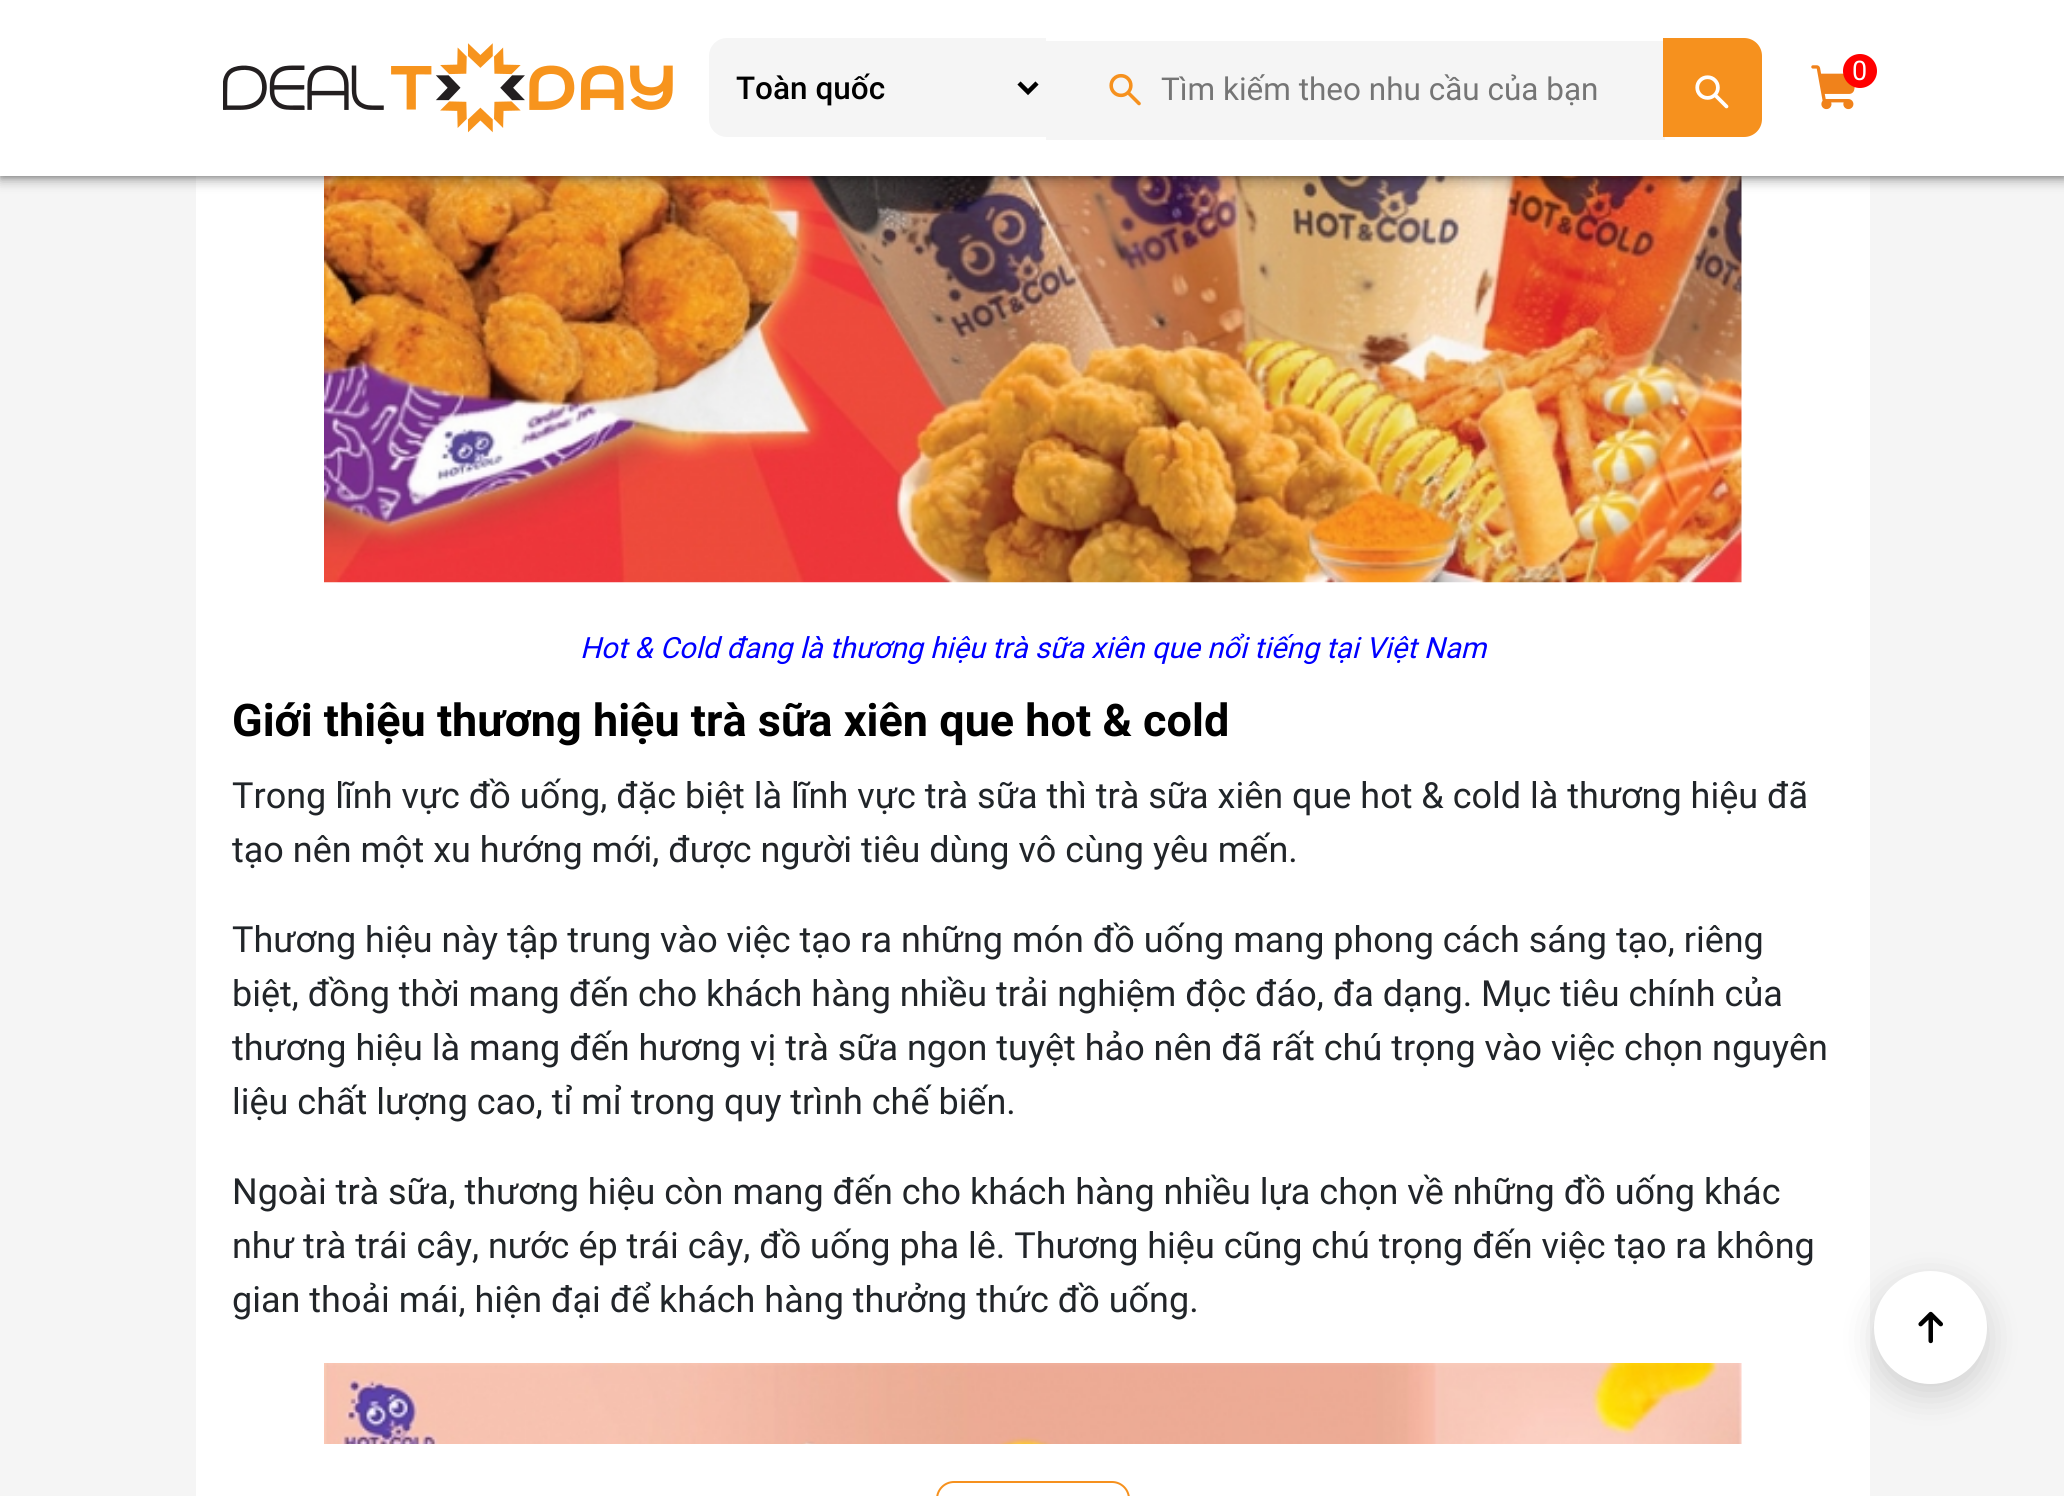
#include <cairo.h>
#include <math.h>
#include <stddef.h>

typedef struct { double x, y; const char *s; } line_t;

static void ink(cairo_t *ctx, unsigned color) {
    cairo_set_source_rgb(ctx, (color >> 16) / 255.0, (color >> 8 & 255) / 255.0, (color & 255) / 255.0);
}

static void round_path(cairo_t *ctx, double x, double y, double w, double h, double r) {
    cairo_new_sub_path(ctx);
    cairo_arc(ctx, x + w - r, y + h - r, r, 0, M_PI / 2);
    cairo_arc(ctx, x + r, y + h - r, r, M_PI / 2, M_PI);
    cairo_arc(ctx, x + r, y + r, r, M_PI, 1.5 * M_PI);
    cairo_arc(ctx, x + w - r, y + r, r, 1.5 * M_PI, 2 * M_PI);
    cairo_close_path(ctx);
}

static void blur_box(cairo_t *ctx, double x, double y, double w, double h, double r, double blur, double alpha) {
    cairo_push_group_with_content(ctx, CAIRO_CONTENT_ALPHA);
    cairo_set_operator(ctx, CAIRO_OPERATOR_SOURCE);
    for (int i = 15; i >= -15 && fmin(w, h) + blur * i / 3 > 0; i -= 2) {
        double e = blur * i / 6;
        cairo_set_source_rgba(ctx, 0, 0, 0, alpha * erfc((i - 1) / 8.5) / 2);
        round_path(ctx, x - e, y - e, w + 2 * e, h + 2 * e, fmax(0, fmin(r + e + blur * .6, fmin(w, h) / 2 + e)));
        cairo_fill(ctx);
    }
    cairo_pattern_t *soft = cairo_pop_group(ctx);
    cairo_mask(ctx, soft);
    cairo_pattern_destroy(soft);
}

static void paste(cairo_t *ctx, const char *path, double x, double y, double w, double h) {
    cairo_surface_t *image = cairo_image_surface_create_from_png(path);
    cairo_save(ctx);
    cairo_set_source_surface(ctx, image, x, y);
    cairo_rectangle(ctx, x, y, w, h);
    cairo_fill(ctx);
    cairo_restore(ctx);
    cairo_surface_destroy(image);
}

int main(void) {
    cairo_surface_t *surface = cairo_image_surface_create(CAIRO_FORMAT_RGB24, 2064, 1496);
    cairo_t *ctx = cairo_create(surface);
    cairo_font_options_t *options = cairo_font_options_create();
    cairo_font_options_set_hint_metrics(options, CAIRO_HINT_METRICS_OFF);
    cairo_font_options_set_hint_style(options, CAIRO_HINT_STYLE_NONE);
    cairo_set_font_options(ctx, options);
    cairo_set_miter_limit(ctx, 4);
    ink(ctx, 0xF5F5F5);
    cairo_paint(ctx);
    ink(ctx, 0xFFFFFF);
    cairo_rectangle(ctx, 196, 176, 1674, 1320);
    cairo_fill(ctx);
    paste(ctx, "media/5.png", 324, 176, 1418, 407);
    ink(ctx, 0x000000);
    blur_box(ctx, 0, 2, 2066, 176, 0, 2, 0.22);
    blur_box(ctx, 0, 7, 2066, 175, 0, 5.5, 0.25);
    ink(ctx, 0xFFFFFF);
    cairo_rectangle(ctx, 0, 0, 2064, 176);
    cairo_fill(ctx);
    paste(ctx, "media/1.png", 223, 43, 450, 90);
    paste(ctx, "media/2.png", 1811, 65, 44, 45);
    ink(ctx, 0xFF0000);
    cairo_arc(ctx, 1860, 71, 17, 0, 2 * M_PI);
    cairo_fill(ctx);
    cairo_select_font_face(ctx, "Roboto", CAIRO_FONT_SLANT_NORMAL, CAIRO_FONT_WEIGHT_NORMAL);
    cairo_set_font_size(ctx, 27);
    ink(ctx, 0xFFFFFF);
    cairo_move_to(ctx, 1852, 80);
    cairo_show_text(ctx, "0");
    ink(ctx, 0xF5F5F5);
    cairo_new_path(ctx);
    cairo_move_to(ctx, 727, 38);
    cairo_line_to(ctx, 1046, 38);
    cairo_line_to(ctx, 1046, 137);
    cairo_line_to(ctx, 727, 137);
    cairo_curve_to(ctx, 717, 137, 709, 129, 709, 119);
    cairo_line_to(ctx, 709, 56);
    cairo_curve_to(ctx, 709, 46, 717, 38, 727, 38);
    cairo_close_path(ctx);
    cairo_fill(ctx);
    cairo_new_path(ctx);
    cairo_move_to(ctx, 1019, 83);
    cairo_line_to(ctx, 1028, 92);
    cairo_line_to(ctx, 1037, 83);
    ink(ctx, 0x000000);
    cairo_set_line_width(ctx, 4.5);
    cairo_stroke(ctx);
    cairo_select_font_face(ctx, "Roboto Medium", CAIRO_FONT_SLANT_NORMAL, CAIRO_FONT_WEIGHT_NORMAL);
    cairo_set_font_size(ctx, 31.5);
    cairo_move_to(ctx, 736, 99);
    cairo_show_text(ctx, "Toàn quốc");
    ink(ctx, 0xF5F5F5);
    cairo_rectangle(ctx, 1046, 41, 619, 99);
    cairo_fill(ctx);
    paste(ctx, "media/3.png", 1109, 73, 32, 33);
    cairo_select_font_face(ctx, "Roboto", CAIRO_FONT_SLANT_NORMAL, CAIRO_FONT_WEIGHT_NORMAL);
    ink(ctx, 0x757575);
    cairo_move_to(ctx, 1161, 100);
    cairo_show_text(ctx, "Tìm kiếm theo nhu cầu của bạn");
    ink(ctx, 0xF6911E);
    cairo_new_path(ctx);
    cairo_move_to(ctx, 1664, 39);
    cairo_line_to(ctx, 1744, 39);
    cairo_curve_to(ctx, 1753.5, 39, 1761, 46.5, 1761, 56);
    cairo_line_to(ctx, 1761, 119);
    cairo_curve_to(ctx, 1761, 128.5, 1753.5, 136, 1744, 136);
    cairo_line_to(ctx, 1664, 136);
    cairo_close_path(ctx);
    cairo_fill_preserve(ctx);
    cairo_set_line_width(ctx, 2);
    cairo_stroke(ctx);
    paste(ctx, "media/4.png", 1695, 75, 34, 34);
    cairo_select_font_face(ctx, "Roboto", CAIRO_FONT_SLANT_ITALIC, CAIRO_FONT_WEIGHT_NORMAL);
    cairo_set_font_size(ctx, 29.25);
    ink(ctx, 0x0000FF);
    cairo_move_to(ctx, 580, 658);
    cairo_show_text(ctx, "Hot & Cold đang là thương hiệu trà sữa xiên que nổi tiếng tại Việt Nam");
    cairo_select_font_face(ctx, "Roboto", CAIRO_FONT_SLANT_NORMAL, CAIRO_FONT_WEIGHT_BOLD);
    cairo_set_font_size(ctx, 45);
    ink(ctx, 0x000000);
    cairo_move_to(ctx, 232, 736);
    cairo_show_text(ctx, "Giới thiệu thương hiệu trà sữa xiên que hot & cold");
    cairo_select_font_face(ctx, "Roboto", CAIRO_FONT_SLANT_NORMAL, CAIRO_FONT_WEIGHT_NORMAL);
    cairo_set_font_size(ctx, 36);
    ink(ctx, 0x212529);
    {
        static const line_t items[] = {
            {232, 808, "Trong lĩnh vực đồ uống, đặc biệt là lĩnh vực trà sữa thì trà sữa xiên que hot & cold là thương hiệu đã"},
            {232, 862, "tạo nên một xu hướng mới, được người tiêu dùng vô cùng yêu mến."},
            {232, 952, "Thương hiệu này tập trung vào việc tạo ra những món đồ uống mang phong cách sáng tạo, riêng"},
            {232, 1006, "biệt, đồng thời mang đến cho khách hàng nhiều trải nghiệm độc đáo, đa dạng. Mục tiêu chính của"},
            {232, 1060, "thương hiệu là mang đến hương vị trà sữa ngon tuyệt hảo nên đã rất chú trọng vào việc chọn nguyên"},
            {232, 1114, "liệu chất lượng cao, tỉ mỉ trong quy trình chế biến."},
            {232, 1204, "Ngoài trà sữa, thương hiệu còn mang đến cho khách hàng nhiều lựa chọn về những đồ uống khác"},
            {232, 1258, "như trà trái cây, nước ép trái cây, đồ uống pha lê. Thương hiệu cũng chú trọng đến việc tạo ra không"},
            {232, 1312, "gian thoải mái, hiện đại để khách hàng thưởng thức đồ uống."},
        };
        for (size_t i = 0; i < sizeof items / sizeof *items; i++) {
            cairo_move_to(ctx, items[i].x, items[i].y);
            cairo_show_text(ctx, items[i].s);
        }
    }
    paste(ctx, "media/6.png", 324, 1363, 1418, 81);
    round_path(ctx, 937, 1482, 192, 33, 17);
    ink(ctx, 0xF6911E);
    cairo_stroke(ctx);
    ink(ctx, 0x000000);
    blur_box(ctx, 1874, 1283, 113, 112, 56, 17, 0.15);
    ink(ctx, 0xFFFFFF);
    cairo_arc(ctx, 1930.5, 1327.5, 56.5, 0, 2 * M_PI);
    cairo_fill(ctx);
    paste(ctx, "media/7.png", 1918, 1311, 25, 33);
    cairo_surface_write_to_png(surface, "image.png");
    cairo_font_options_destroy(options);
    cairo_destroy(ctx);
    cairo_surface_destroy(surface);
    return 0;
}
